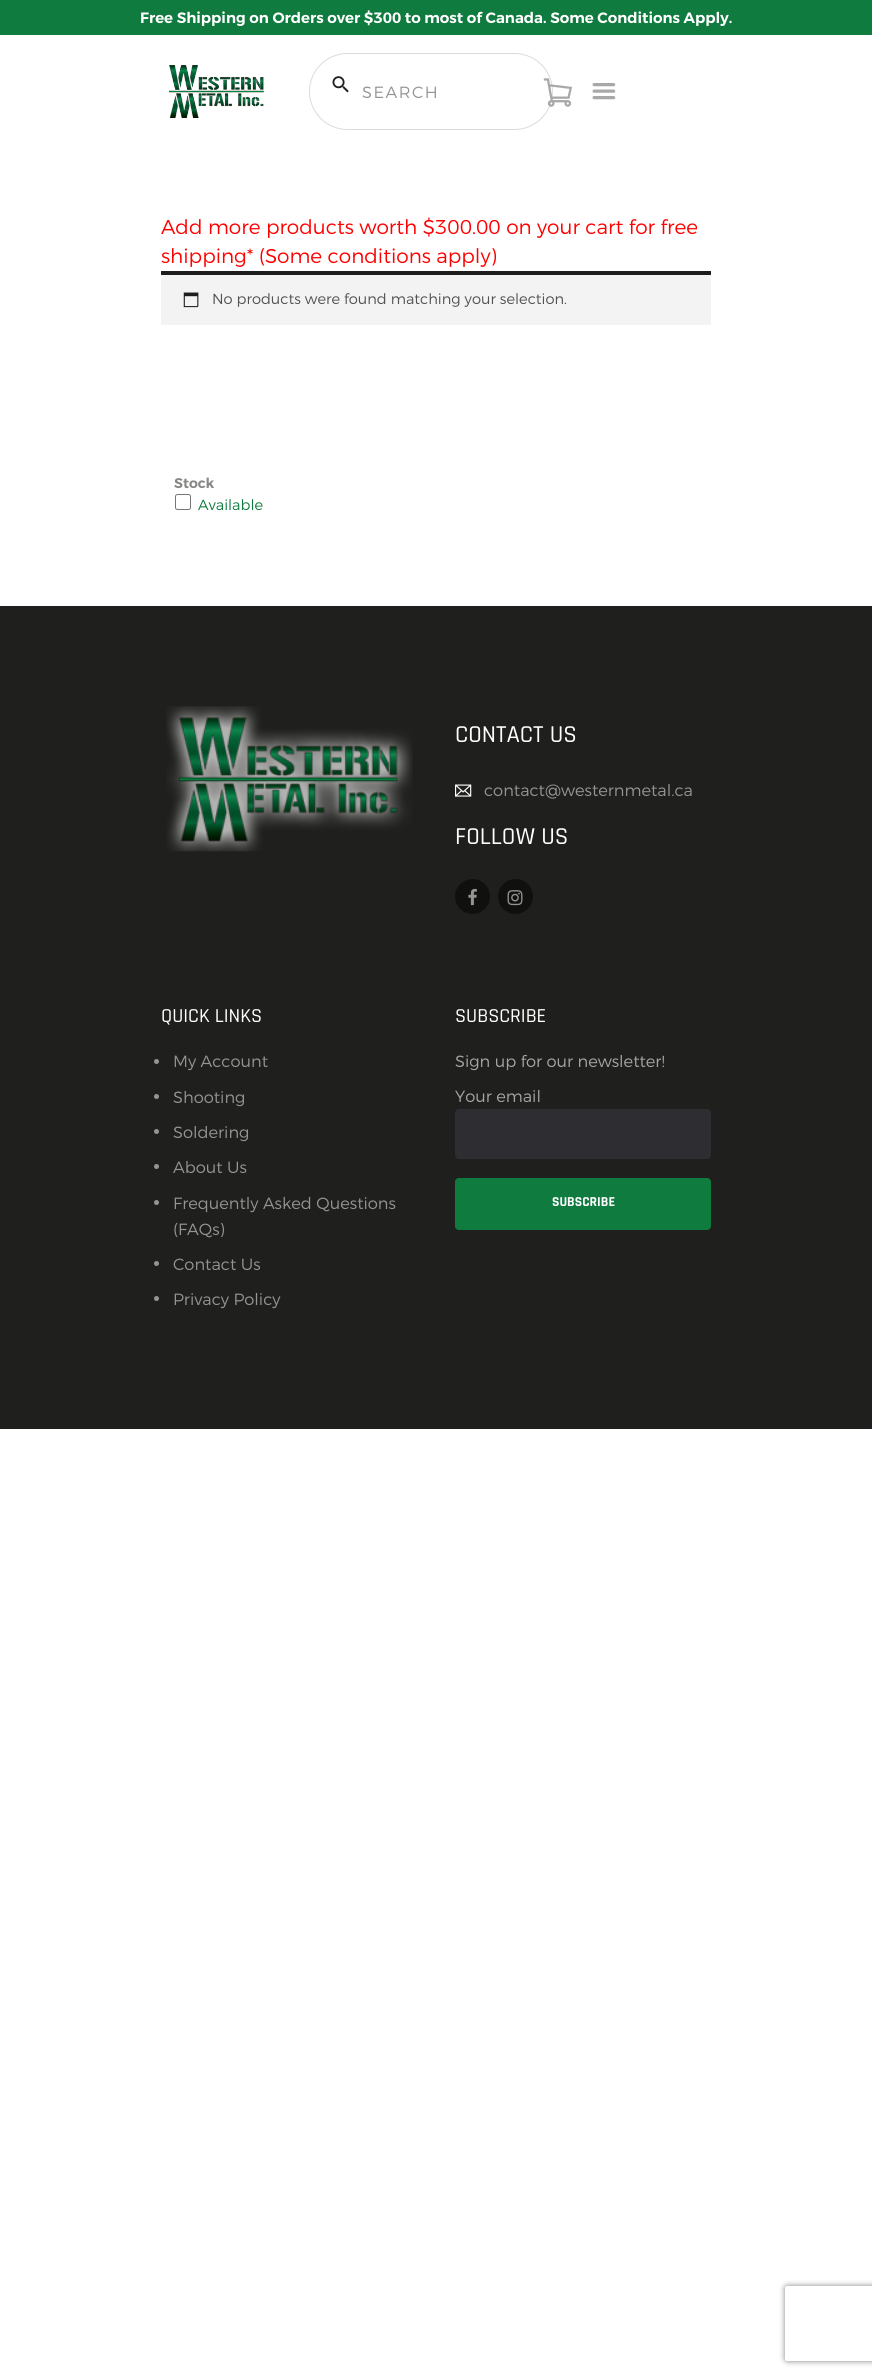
#include <cairo.h>
#include <math.h>
#include <stddef.h>


static void ink(cairo_t *ctx, unsigned color) {
    cairo_set_source_rgb(ctx, (color >> 16) / 255.0, (color >> 8 & 255) / 255.0, (color & 255) / 255.0);
}

static void write_spaced(cairo_t *ctx, double x, double y, const char *s, double letter, double word) {
    cairo_move_to(ctx, x, y);
    while (*s) {
        char ch[5] = {0};
        int n = 0;
        do ch[n++] = *s++; while ((*s & 0xC0) == 0x80);
        cairo_show_text(ctx, ch);
        cairo_rel_move_to(ctx, letter + word * (*ch == ' '), 0);
    }
}

static void round_path(cairo_t *ctx, double x, double y, double w, double h, double r) {
    cairo_new_sub_path(ctx);
    cairo_arc(ctx, x + w - r, y + h - r, r, 0, M_PI / 2);
    cairo_arc(ctx, x + r, y + h - r, r, M_PI / 2, M_PI);
    cairo_arc(ctx, x + r, y + r, r, M_PI, 1.5 * M_PI);
    cairo_arc(ctx, x + w - r, y + r, r, 1.5 * M_PI, 2 * M_PI);
    cairo_close_path(ctx);
}

static void blur_box(cairo_t *ctx, double x, double y, double w, double h, double r, double blur, double alpha) {
    cairo_push_group_with_content(ctx, CAIRO_CONTENT_ALPHA);
    cairo_set_operator(ctx, CAIRO_OPERATOR_SOURCE);
    for (int i = 15; i >= -15 && fmin(w, h) + blur * i / 3 > 0; i -= 2) {
        double e = blur * i / 6;
        cairo_set_source_rgba(ctx, 0, 0, 0, alpha * erfc((i - 1) / 8.5) / 2);
        round_path(ctx, x - e, y - e, w + 2 * e, h + 2 * e, fmax(0, fmin(r + e + blur * .6, fmin(w, h) / 2 + e)));
        cairo_fill(ctx);
    }
    cairo_pattern_t *soft = cairo_pop_group(ctx);
    cairo_mask(ctx, soft);
    cairo_pattern_destroy(soft);
}

static void paste(cairo_t *ctx, const char *path, double x, double y, double w, double h) {
    cairo_surface_t *image = cairo_image_surface_create_from_png(path);
    cairo_save(ctx);
    cairo_set_source_surface(ctx, image, x, y);
    cairo_rectangle(ctx, x, y, w, h);
    cairo_fill(ctx);
    cairo_restore(ctx);
    cairo_surface_destroy(image);
}

int main(void) {
    cairo_surface_t *surface = cairo_image_surface_create(CAIRO_FORMAT_RGB24, 872, 2378);
    cairo_t *ctx = cairo_create(surface);
    cairo_font_options_t *options = cairo_font_options_create();
    cairo_font_options_set_hint_metrics(options, CAIRO_HINT_METRICS_OFF);
    cairo_font_options_set_hint_style(options, CAIRO_HINT_STYLE_NONE);
    cairo_set_font_options(ctx, options);
    cairo_set_miter_limit(ctx, 4);
    ink(ctx, 0xFFFFFF);
    cairo_paint(ctx);
    ink(ctx, 0x0F7B3F);
    cairo_rectangle(ctx, 0, 0, 872, 35);
    cairo_fill(ctx);
    cairo_select_font_face(ctx, "Montserrat SemiBold", CAIRO_FONT_SLANT_NORMAL, CAIRO_FONT_WEIGHT_NORMAL);
    cairo_set_font_size(ctx, 15);
    ink(ctx, 0xFFFFFF);
    cairo_move_to(ctx, 140, 23);
    cairo_show_text(ctx, "Free Shipping on Orders over $300 to most of Canada. Some Conditions Apply.");
    paste(ctx, "media/1.png", 169, 65, 95, 53);
    round_path(ctx, 309.5, 53.5, 243, 76, 38);
    ink(ctx, 0xDBDBDB);
    cairo_set_line_width(ctx, 1);
    cairo_stroke(ctx);
    paste(ctx, "media/2.png", 332, 76, 17, 17);
    cairo_select_font_face(ctx, "Montserrat Light", CAIRO_FONT_SLANT_NORMAL, CAIRO_FONT_WEIGHT_NORMAL);
    cairo_set_font_size(ctx, 16.25);
    ink(ctx, 0x949493);
    write_spaced(ctx, 362, 98, "SEARCH", 1.5, 0);
    paste(ctx, "media/3.png", 543, 78, 30, 29);
    paste(ctx, "media/4.png", 592, 83, 24, 17);
    cairo_set_font_size(ctx, 20);
    ink(ctx, 0xFF0000);
    cairo_move_to(ctx, 161, 234);
    cairo_show_text(ctx, "Add more products worth $300.00 on your cart for free");
    cairo_move_to(ctx, 161, 263);
    cairo_show_text(ctx, "shipping* (Some conditions apply)");
    ink(ctx, 0xF3F3F3);
    cairo_rectangle(ctx, 161, 275, 550, 50);
    cairo_fill(ctx);
    ink(ctx, 0x1D1D1D);
    cairo_rectangle(ctx, 161, 271, 550, 4);
    cairo_fill(ctx);
    paste(ctx, "media/5.png", 183, 292, 16, 16);
    cairo_set_font_size(ctx, 14.6);
    ink(ctx, 0x515151);
    cairo_move_to(ctx, 212, 304);
    cairo_show_text(ctx, "No products were found matching your selection.");
    cairo_select_font_face(ctx, "Montserrat SemiBold", CAIRO_FONT_SLANT_NORMAL, CAIRO_FONT_WEIGHT_NORMAL);
    cairo_set_font_size(ctx, 14);
    ink(ctx, 0x878786);
    cairo_move_to(ctx, 174, 488);
    cairo_show_text(ctx, "Stock");
    round_path(ctx, 175.5, 494.5, 15, 15, 2);
    ink(ctx, 0x767676);
    cairo_stroke(ctx);
    cairo_select_font_face(ctx, "Montserrat Light", CAIRO_FONT_SLANT_NORMAL, CAIRO_FONT_WEIGHT_NORMAL);
    cairo_set_font_size(ctx, 14.6);
    ink(ctx, 0x0F7B3F);
    cairo_move_to(ctx, 198, 510);
    cairo_show_text(ctx, "Available");
    ink(ctx, 0x1F1F1D);
    cairo_rectangle(ctx, 0, 606, 872, 823);
    cairo_fill(ctx);
    paste(ctx, "media/6.png", 166, 706, 247, 146);
    cairo_select_font_face(ctx, "Rajdhani Medium", CAIRO_FONT_SLANT_NORMAL, CAIRO_FONT_WEIGHT_NORMAL);
    cairo_set_font_size(ctx, 24.5);
    ink(ctx, 0xFFFFFF);
    cairo_move_to(ctx, 455, 742);
    cairo_show_text(ctx, "CONTACT US");
    paste(ctx, "media/7.png", 455, 784, 17, 13);
    cairo_select_font_face(ctx, "Montserrat Light", CAIRO_FONT_SLANT_NORMAL, CAIRO_FONT_WEIGHT_NORMAL);
    cairo_set_font_size(ctx, 16.25);
    ink(ctx, 0x949493);
    cairo_move_to(ctx, 484, 796);
    cairo_show_text(ctx, "contact@westernmetal.ca");
    cairo_select_font_face(ctx, "Rajdhani Medium", CAIRO_FONT_SLANT_NORMAL, CAIRO_FONT_WEIGHT_NORMAL);
    cairo_set_font_size(ctx, 24.5);
    ink(ctx, 0xFFFFFF);
    cairo_move_to(ctx, 455, 844);
    cairo_show_text(ctx, "FOLLOW US");
    ink(ctx, 0x10100F);
    cairo_new_path(ctx);
    cairo_arc(ctx, 472.5, 896.5, 17.5, 0, 2 * M_PI);
    cairo_fill(ctx);
    paste(ctx, "media/8.png", 468, 888, 9, 18);
    cairo_arc(ctx, 515.5, 896.5, 17.5, 0, 2 * M_PI);
    cairo_fill(ctx);
    paste(ctx, "media/9.png", 507, 890, 16, 16);
    cairo_set_font_size(ctx, 20);
    ink(ctx, 0xFFFFFF);
    cairo_move_to(ctx, 161, 1022);
    cairo_show_text(ctx, "QUICK LINKS");
    ink(ctx, 0x949493);
    cairo_new_path(ctx);
    cairo_arc(ctx, 156.5, 1061.5, 2.5, 0, 2 * M_PI);
    cairo_fill(ctx);
    cairo_select_font_face(ctx, "Montserrat Light", CAIRO_FONT_SLANT_NORMAL, CAIRO_FONT_WEIGHT_NORMAL);
    cairo_set_font_size(ctx, 16.25);
    cairo_move_to(ctx, 173, 1067);
    cairo_show_text(ctx, "My Account");
    cairo_new_path(ctx);
    cairo_arc(ctx, 156.5, 1096.5, 2.5, 0, 2 * M_PI);
    cairo_fill(ctx);
    cairo_move_to(ctx, 173, 1103);
    cairo_show_text(ctx, "Shooting");
    cairo_new_path(ctx);
    cairo_arc(ctx, 156.5, 1131.5, 2.5, 0, 2 * M_PI);
    cairo_fill(ctx);
    cairo_move_to(ctx, 173, 1138);
    cairo_show_text(ctx, "Soldering");
    cairo_new_path(ctx);
    cairo_arc(ctx, 156.5, 1166.5, 2.5, 0, 2 * M_PI);
    cairo_fill(ctx);
    cairo_move_to(ctx, 173, 1173);
    cairo_show_text(ctx, "About Us");
    cairo_new_path(ctx);
    cairo_arc(ctx, 156.5, 1202.5, 2.5, 0, 2 * M_PI);
    cairo_fill(ctx);
    cairo_move_to(ctx, 173, 1209);
    cairo_show_text(ctx, "Frequently Asked Questions");
    cairo_move_to(ctx, 173, 1235);
    cairo_show_text(ctx, "(FAQs)");
    cairo_new_path(ctx);
    cairo_arc(ctx, 156.5, 1263.5, 2.5, 0, 2 * M_PI);
    cairo_fill(ctx);
    cairo_move_to(ctx, 173, 1270);
    cairo_show_text(ctx, "Contact Us");
    cairo_new_path(ctx);
    cairo_arc(ctx, 156.5, 1298.5, 2.5, 0, 2 * M_PI);
    cairo_fill(ctx);
    cairo_move_to(ctx, 173, 1305);
    cairo_show_text(ctx, "Privacy Policy");
    cairo_select_font_face(ctx, "Rajdhani Medium", CAIRO_FONT_SLANT_NORMAL, CAIRO_FONT_WEIGHT_NORMAL);
    cairo_set_font_size(ctx, 20);
    ink(ctx, 0xFFFFFF);
    cairo_move_to(ctx, 455, 1022);
    cairo_show_text(ctx, "SUBSCRIBE");
    cairo_select_font_face(ctx, "Montserrat Light", CAIRO_FONT_SLANT_NORMAL, CAIRO_FONT_WEIGHT_NORMAL);
    cairo_set_font_size(ctx, 16.25);
    ink(ctx, 0xA6A6A6);
    cairo_move_to(ctx, 455, 1067);
    cairo_show_text(ctx, "Sign up for our newsletter!");
    cairo_move_to(ctx, 455, 1102);
    cairo_show_text(ctx, "Your email");
    ink(ctx, 0x2E2D32);
    round_path(ctx, 455.5, 1109.5, 255, 49, 3.5);
    cairo_fill_preserve(ctx);
    cairo_stroke(ctx);
    ink(ctx, 0x0F7B3F);
    round_path(ctx, 455, 1178, 256, 52, 4);
    cairo_fill(ctx);
    cairo_select_font_face(ctx, "Rajdhani", CAIRO_FONT_SLANT_NORMAL, CAIRO_FONT_WEIGHT_BOLD);
    cairo_set_font_size(ctx, 13.75);
    ink(ctx, 0xFFFFFF);
    cairo_move_to(ctx, 552, 1206);
    cairo_show_text(ctx, "SUBSCRIBE");
    cairo_save(ctx);
    cairo_set_fill_rule(ctx, CAIRO_FILL_RULE_EVEN_ODD);
    cairo_new_path(ctx);
    cairo_move_to(ctx, 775, 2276);
    cairo_line_to(ctx, 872, 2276);
    cairo_line_to(ctx, 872, 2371);
    cairo_line_to(ctx, 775, 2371);
    cairo_close_path(ctx);
    cairo_move_to(ctx, 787.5, 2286);
    cairo_line_to(ctx, 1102.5, 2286);
    cairo_curve_to(ctx, 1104, 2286, 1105, 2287, 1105, 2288.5);
    cairo_line_to(ctx, 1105, 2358.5);
    cairo_curve_to(ctx, 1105, 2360, 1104, 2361, 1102.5, 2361);
    cairo_line_to(ctx, 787.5, 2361);
    cairo_curve_to(ctx, 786, 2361, 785, 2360, 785, 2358.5);
    cairo_line_to(ctx, 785, 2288.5);
    cairo_curve_to(ctx, 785, 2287, 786, 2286, 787.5, 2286);
    cairo_close_path(ctx);
    cairo_clip(ctx);
    ink(ctx, 0x808080);
    blur_box(ctx, 785, 2286, 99, 75, 2.5, 3, 1);
    cairo_restore(ctx);
    cairo_surface_write_to_png(surface, "image.png");
    cairo_font_options_destroy(options);
    cairo_destroy(ctx);
    cairo_surface_destroy(surface);
    return 0;
}
